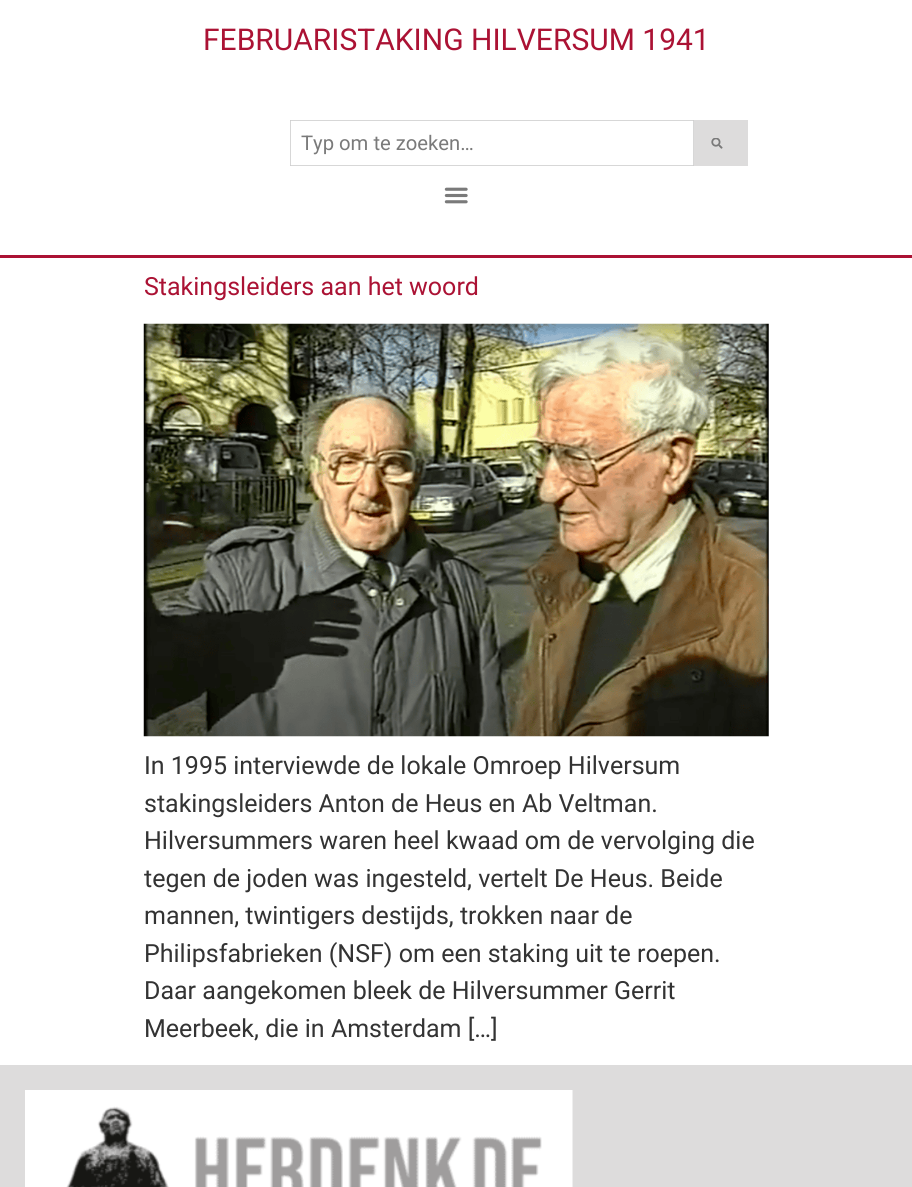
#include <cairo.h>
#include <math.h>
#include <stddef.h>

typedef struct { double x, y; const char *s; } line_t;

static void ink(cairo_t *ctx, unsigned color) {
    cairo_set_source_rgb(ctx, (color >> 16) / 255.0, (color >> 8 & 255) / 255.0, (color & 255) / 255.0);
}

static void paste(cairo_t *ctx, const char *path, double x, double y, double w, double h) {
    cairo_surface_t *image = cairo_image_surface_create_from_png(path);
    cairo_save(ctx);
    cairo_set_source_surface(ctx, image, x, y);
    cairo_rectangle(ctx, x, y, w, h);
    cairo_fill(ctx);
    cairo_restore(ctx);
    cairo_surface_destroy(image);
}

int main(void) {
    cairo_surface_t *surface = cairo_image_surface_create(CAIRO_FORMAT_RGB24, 912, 1187);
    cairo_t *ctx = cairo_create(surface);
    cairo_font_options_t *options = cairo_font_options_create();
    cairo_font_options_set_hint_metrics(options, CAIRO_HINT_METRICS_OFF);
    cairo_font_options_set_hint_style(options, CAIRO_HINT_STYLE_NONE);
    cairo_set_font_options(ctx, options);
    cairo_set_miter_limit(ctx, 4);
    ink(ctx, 0xFFFFFF);
    cairo_paint(ctx);
    ink(ctx, 0xAB1234);
    cairo_rectangle(ctx, 0, 255, 912, 3);
    cairo_fill(ctx);
    cairo_select_font_face(ctx, "Roboto", CAIRO_FONT_SLANT_NORMAL, CAIRO_FONT_WEIGHT_NORMAL);
    cairo_set_font_size(ctx, 30);
    cairo_move_to(ctx, 203, 50);
    cairo_show_text(ctx, "FEBRUARISTAKING HILVERSUM 1941");
    cairo_rectangle(ctx, 290.4, 120.4, 403.2, 45.2);
    ink(ctx, 0xCDCDCD);
    cairo_set_line_width(ctx, 0.8);
    cairo_stroke(ctx);
    cairo_set_font_size(ctx, 20.25);
    ink(ctx, 0x7A7A7A);
    cairo_move_to(ctx, 301, 150);
    cairo_show_text(ctx, "Typ om te zoeken…");
    ink(ctx, 0xDDDCDC);
    cairo_rectangle(ctx, 694, 120, 54, 46);
    cairo_fill(ctx);
    paste(ctx, "media/1.png", 711, 138, 12, 11);
    paste(ctx, "media/2.png", 444, 187, 24, 17);
    cairo_set_font_size(ctx, 25);
    ink(ctx, 0xAB1234);
    cairo_move_to(ctx, 144, 295);
    cairo_show_text(ctx, "Stakingsleiders aan het woord");
    paste(ctx, "media/3.png", 143, 323, 626, 414);
    ink(ctx, 0x333333);
    {
        static const line_t items[] = {
            {144, 774, "In 1995 interviewde de lokale Omroep Hilversum"},
            {144, 812, "stakingsleiders Anton de Heus en Ab Veltman."},
            {144, 849, "Hilversummers waren heel kwaad om de vervolging die"},
            {144, 887, "tegen de joden was ingesteld, vertelt De Heus. Beide"},
            {144, 924, "mannen, twintigers destijds, trokken naar de"},
            {144, 962, "Philipsfabrieken (NSF) om een staking uit te roepen."},
            {144, 999, "Daar aangekomen bleek de Hilversummer Gerrit"},
            {144, 1037, "Meerbeek, die in Amsterdam […]"},
        };
        for (size_t i = 0; i < sizeof items / sizeof *items; i++) {
            cairo_move_to(ctx, items[i].x, items[i].y);
            cairo_show_text(ctx, items[i].s);
        }
    }
    ink(ctx, 0xDDDCDC);
    cairo_rectangle(ctx, 0, 1065, 912, 122);
    cairo_fill(ctx);
    paste(ctx, "media/4.png", 25, 1090, 548, 97);
    cairo_surface_write_to_png(surface, "image.png");
    cairo_font_options_destroy(options);
    cairo_destroy(ctx);
    cairo_surface_destroy(surface);
    return 0;
}
